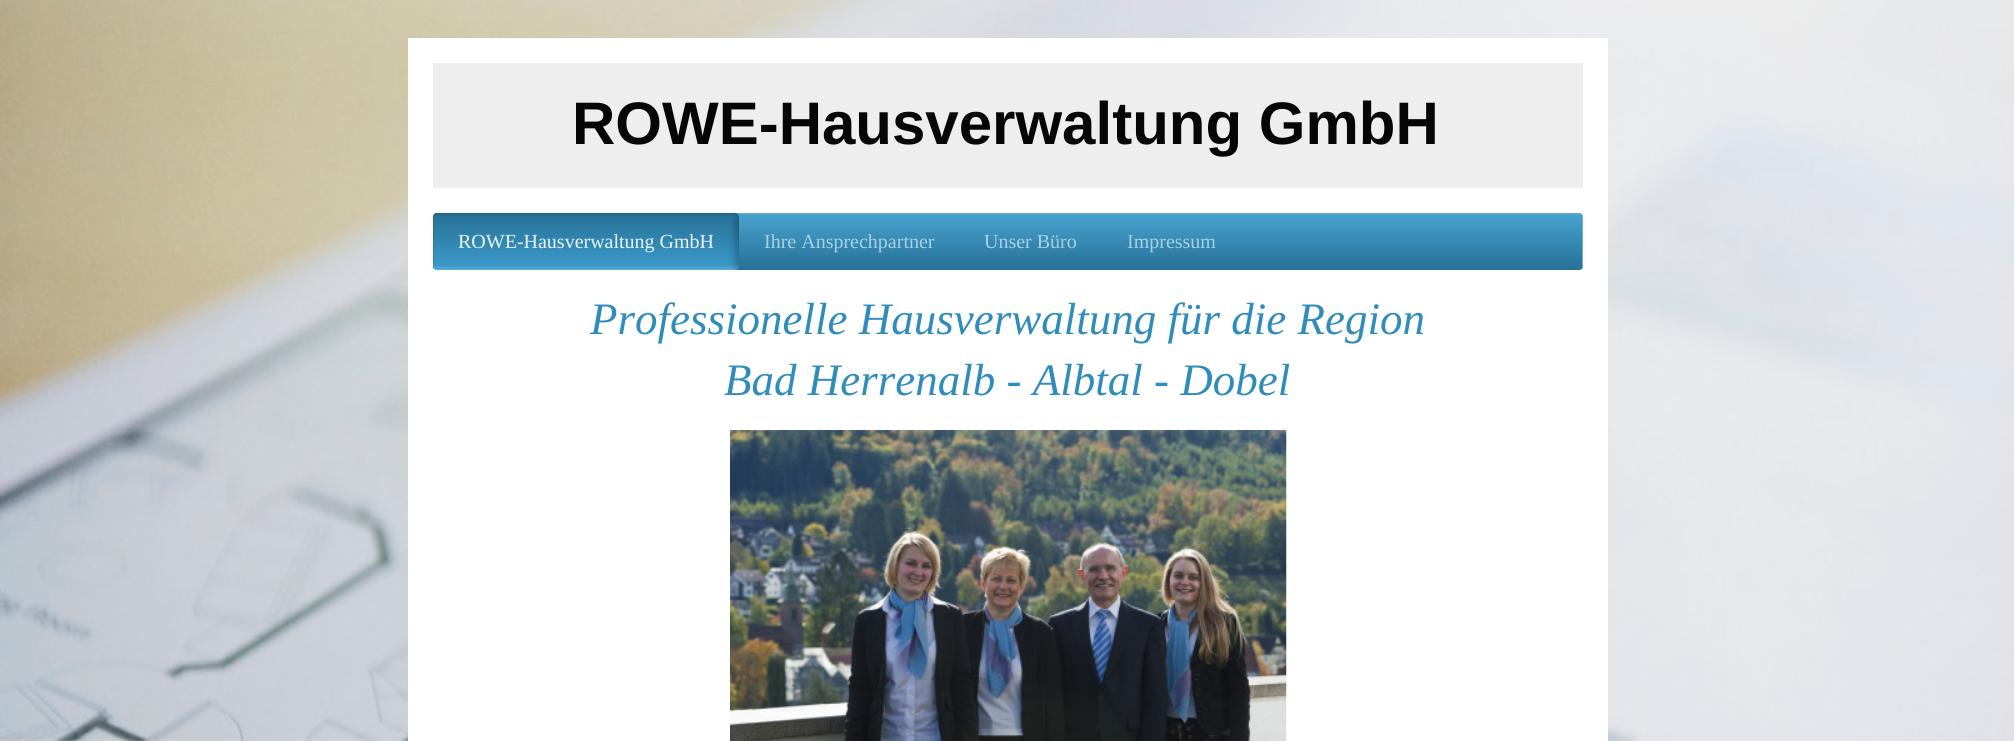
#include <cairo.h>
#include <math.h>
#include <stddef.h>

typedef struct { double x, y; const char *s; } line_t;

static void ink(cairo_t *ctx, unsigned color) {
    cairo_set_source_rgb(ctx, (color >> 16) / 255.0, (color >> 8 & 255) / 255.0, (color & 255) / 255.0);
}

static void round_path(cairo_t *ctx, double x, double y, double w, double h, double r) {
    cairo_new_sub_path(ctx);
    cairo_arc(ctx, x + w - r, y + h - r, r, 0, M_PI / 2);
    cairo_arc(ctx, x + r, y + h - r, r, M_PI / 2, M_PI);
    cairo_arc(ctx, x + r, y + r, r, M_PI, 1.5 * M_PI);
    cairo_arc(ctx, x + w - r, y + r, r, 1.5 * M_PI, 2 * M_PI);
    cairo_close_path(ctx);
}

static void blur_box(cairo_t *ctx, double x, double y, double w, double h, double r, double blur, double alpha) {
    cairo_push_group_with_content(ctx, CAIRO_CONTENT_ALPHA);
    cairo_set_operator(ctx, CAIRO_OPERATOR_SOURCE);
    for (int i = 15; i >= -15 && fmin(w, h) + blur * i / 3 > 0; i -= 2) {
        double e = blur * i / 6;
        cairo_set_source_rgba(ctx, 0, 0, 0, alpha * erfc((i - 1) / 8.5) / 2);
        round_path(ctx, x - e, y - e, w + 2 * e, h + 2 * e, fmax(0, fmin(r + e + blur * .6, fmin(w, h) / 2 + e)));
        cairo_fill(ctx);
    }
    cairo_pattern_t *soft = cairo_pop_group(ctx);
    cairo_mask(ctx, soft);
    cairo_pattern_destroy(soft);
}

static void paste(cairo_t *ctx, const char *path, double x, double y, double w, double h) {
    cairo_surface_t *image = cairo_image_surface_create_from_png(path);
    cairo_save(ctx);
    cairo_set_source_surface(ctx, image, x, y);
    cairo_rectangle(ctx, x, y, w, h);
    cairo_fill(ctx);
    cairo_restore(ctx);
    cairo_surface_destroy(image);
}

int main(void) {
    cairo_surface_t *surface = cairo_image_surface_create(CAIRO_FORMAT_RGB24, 2014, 741);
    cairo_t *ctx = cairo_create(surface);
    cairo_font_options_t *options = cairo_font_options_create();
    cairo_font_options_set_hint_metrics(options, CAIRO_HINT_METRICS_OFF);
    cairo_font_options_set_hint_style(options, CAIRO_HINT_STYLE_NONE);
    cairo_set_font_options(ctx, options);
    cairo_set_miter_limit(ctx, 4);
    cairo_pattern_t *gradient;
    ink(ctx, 0xFFFFFF);
    cairo_paint(ctx);
    paste(ctx, "media/1.png", 0, 0, 2014, 741);
    ink(ctx, 0xFFFFFF);
    cairo_rectangle(ctx, 408, 38, 1200, 703);
    cairo_fill(ctx);
    ink(ctx, 0xEEEEEE);
    cairo_rectangle(ctx, 433, 63, 1150, 125);
    cairo_fill(ctx);
    cairo_select_font_face(ctx, "Liberation Sans", CAIRO_FONT_SLANT_NORMAL, CAIRO_FONT_WEIGHT_BOLD);
    cairo_set_font_size(ctx, 60);
    ink(ctx, 0x070606);
    cairo_move_to(ctx, 572, 144);
    cairo_show_text(ctx, "ROWE-Hausverwaltung GmbH");
    gradient = cairo_pattern_create_linear(433, 213, 433, 270);
    cairo_pattern_add_color_stop_rgba(gradient, 0, 0.282, 0.639, 0.816, 1);
    cairo_pattern_add_color_stop_rgba(gradient, 1, 0.153, 0.443, 0.588, 1);
    cairo_set_source(ctx, gradient);
    cairo_pattern_destroy(gradient);
    round_path(ctx, 433, 213, 1150, 57, 4);
    cairo_fill(ctx);
    ink(ctx, 0x2F89B6);
    cairo_new_path(ctx);
    cairo_move_to(ctx, 436, 214);
    cairo_line_to(ctx, 1579, 214);
    cairo_curve_to(ctx, 1581, 214, 1582, 215, 1582, 218);
    cairo_line_to(ctx, 1582, 269);
    cairo_curve_to(ctx, 1583, 268, 1583, 267, 1583, 266);
    cairo_line_to(ctx, 1583, 217);
    cairo_curve_to(ctx, 1583, 215, 1581, 213, 1579, 213);
    cairo_line_to(ctx, 437, 213);
    cairo_curve_to(ctx, 436, 213, 435, 214, 434, 214);
    cairo_close_path(ctx);
    cairo_fill(ctx);
    cairo_set_source_rgba(ctx, 1, 1, 1, 0.3);
    cairo_new_path(ctx);
    cairo_move_to(ctx, 436, 214);
    cairo_line_to(ctx, 1579, 214);
    cairo_curve_to(ctx, 1581, 214, 1582, 215, 1582, 218);
    cairo_line_to(ctx, 1582, 269);
    cairo_curve_to(ctx, 1583, 268, 1583, 267, 1583, 266);
    cairo_line_to(ctx, 1583, 217);
    cairo_curve_to(ctx, 1583, 215, 1581, 213, 1579, 213);
    cairo_line_to(ctx, 437, 213);
    cairo_curve_to(ctx, 436, 213, 435, 214, 434, 214);
    cairo_close_path(ctx);
    cairo_fill(ctx);
    gradient = cairo_pattern_create_linear(433, 270, 433, 213);
    cairo_pattern_add_color_stop_rgba(gradient, 0, 0.235, 0.612, 0.804, 1);
    cairo_pattern_add_color_stop_rgba(gradient, 1, 0.153, 0.443, 0.588, 1);
    cairo_set_source(ctx, gradient);
    cairo_pattern_destroy(gradient);
    round_path(ctx, 433, 213, 306, 57, 4);
    cairo_fill(ctx);
    cairo_set_source_rgba(ctx, 0, 0, 0, 0.15);
    cairo_new_path(ctx);
    cairo_move_to(ctx, 438, 214);
    cairo_line_to(ctx, 736, 214);
    cairo_line_to(ctx, 738, 214);
    cairo_curve_to(ctx, 737, 214, 736, 213, 735, 213);
    cairo_line_to(ctx, 437, 213);
    cairo_curve_to(ctx, 435, 213, 433, 215, 433, 217);
    cairo_line_to(ctx, 433, 266);
    cairo_curve_to(ctx, 433, 267, 433, 268, 434, 269);
    cairo_line_to(ctx, 434, 226);
    cairo_curve_to(ctx, 434, 222, 432, 214, 438, 214);
    cairo_close_path(ctx);
    cairo_fill(ctx);
    cairo_set_source_rgba(ctx, 0, 0, 0, 0.04);
    cairo_new_path(ctx);
    cairo_move_to(ctx, 436, 216);
    cairo_line_to(ctx, 735, 216);
    cairo_curve_to(ctx, 737, 216, 739, 218, 739, 220);
    cairo_line_to(ctx, 739, 217);
    cairo_curve_to(ctx, 739, 215, 737, 213, 735, 213);
    cairo_line_to(ctx, 437, 213);
    cairo_curve_to(ctx, 435, 213, 433, 215, 433, 217);
    cairo_line_to(ctx, 433, 218);
    cairo_curve_to(ctx, 434, 217, 435, 216, 436, 216);
    cairo_close_path(ctx);
    cairo_fill(ctx);
    cairo_set_source_rgba(ctx, 1, 1, 1, 0.08);
    cairo_new_path(ctx);
    cairo_move_to(ctx, 433, 265);
    cairo_line_to(ctx, 433, 266);
    cairo_curve_to(ctx, 433, 268, 435, 270, 437, 270);
    cairo_line_to(ctx, 735, 270);
    cairo_curve_to(ctx, 737, 270, 739, 268, 739, 266);
    cairo_line_to(ctx, 739, 262);
    cairo_curve_to(ctx, 739, 265, 737, 266, 735, 266);
    cairo_line_to(ctx, 436, 266);
    cairo_curve_to(ctx, 435, 266, 434, 266, 433, 265);
    cairo_close_path(ctx);
    cairo_fill(ctx);
    cairo_set_source_rgba(ctx, 1, 1, 1, 0.1);
    cairo_new_path(ctx);
    cairo_move_to(ctx, 434, 268);
    cairo_curve_to(ctx, 434, 269, 436, 270, 437, 270);
    cairo_line_to(ctx, 735, 270);
    cairo_curve_to(ctx, 737, 270, 739, 268, 739, 266);
    cairo_line_to(ctx, 739, 265);
    cairo_curve_to(ctx, 739, 267, 737, 269, 735, 269);
    cairo_line_to(ctx, 436, 269);
    cairo_close_path(ctx);
    cairo_fill(ctx);
    cairo_select_font_face(ctx, "Liberation Serif", CAIRO_FONT_SLANT_NORMAL, CAIRO_FONT_WEIGHT_NORMAL);
    cairo_set_font_size(ctx, 20);
    ink(ctx, 0xEAF4F8);
    cairo_move_to(ctx, 458, 248);
    cairo_show_text(ctx, "ROWE-Hausverwaltung GmbH");
    cairo_save(ctx);
    round_path(ctx, 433, 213, 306, 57, 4);
    cairo_clip(ctx);
    ink(ctx, 0x000000);
    blur_box(ctx, 736, 215, 20, 58, 10, 4.5, 0.3);
    cairo_restore(ctx);
    ink(ctx, 0xA5D0E6);
    {
        static const line_t items[] = {
            {764, 248, "Ihre Ansprechpartner"},
            {984, 248, "Unser Büro"},
            {1127, 248, "Impressum"},
        };
        for (size_t i = 0; i < sizeof items / sizeof *items; i++) {
            cairo_move_to(ctx, items[i].x, items[i].y);
            cairo_show_text(ctx, items[i].s);
        }
    }
    cairo_select_font_face(ctx, "Liberation Serif", CAIRO_FONT_SLANT_ITALIC, CAIRO_FONT_WEIGHT_NORMAL);
    cairo_set_font_size(ctx, 45);
    ink(ctx, 0x308CBA);
    cairo_move_to(ctx, 590, 334);
    cairo_show_text(ctx, "Professionelle Hausverwaltung für die Region");
    cairo_move_to(ctx, 724, 395);
    cairo_show_text(ctx, "Bad Herrenalb - Albtal - Dobel");
    paste(ctx, "media/2.png", 730, 430, 557, 311);
    cairo_surface_write_to_png(surface, "image.png");
    cairo_font_options_destroy(options);
    cairo_destroy(ctx);
    cairo_surface_destroy(surface);
    return 0;
}
